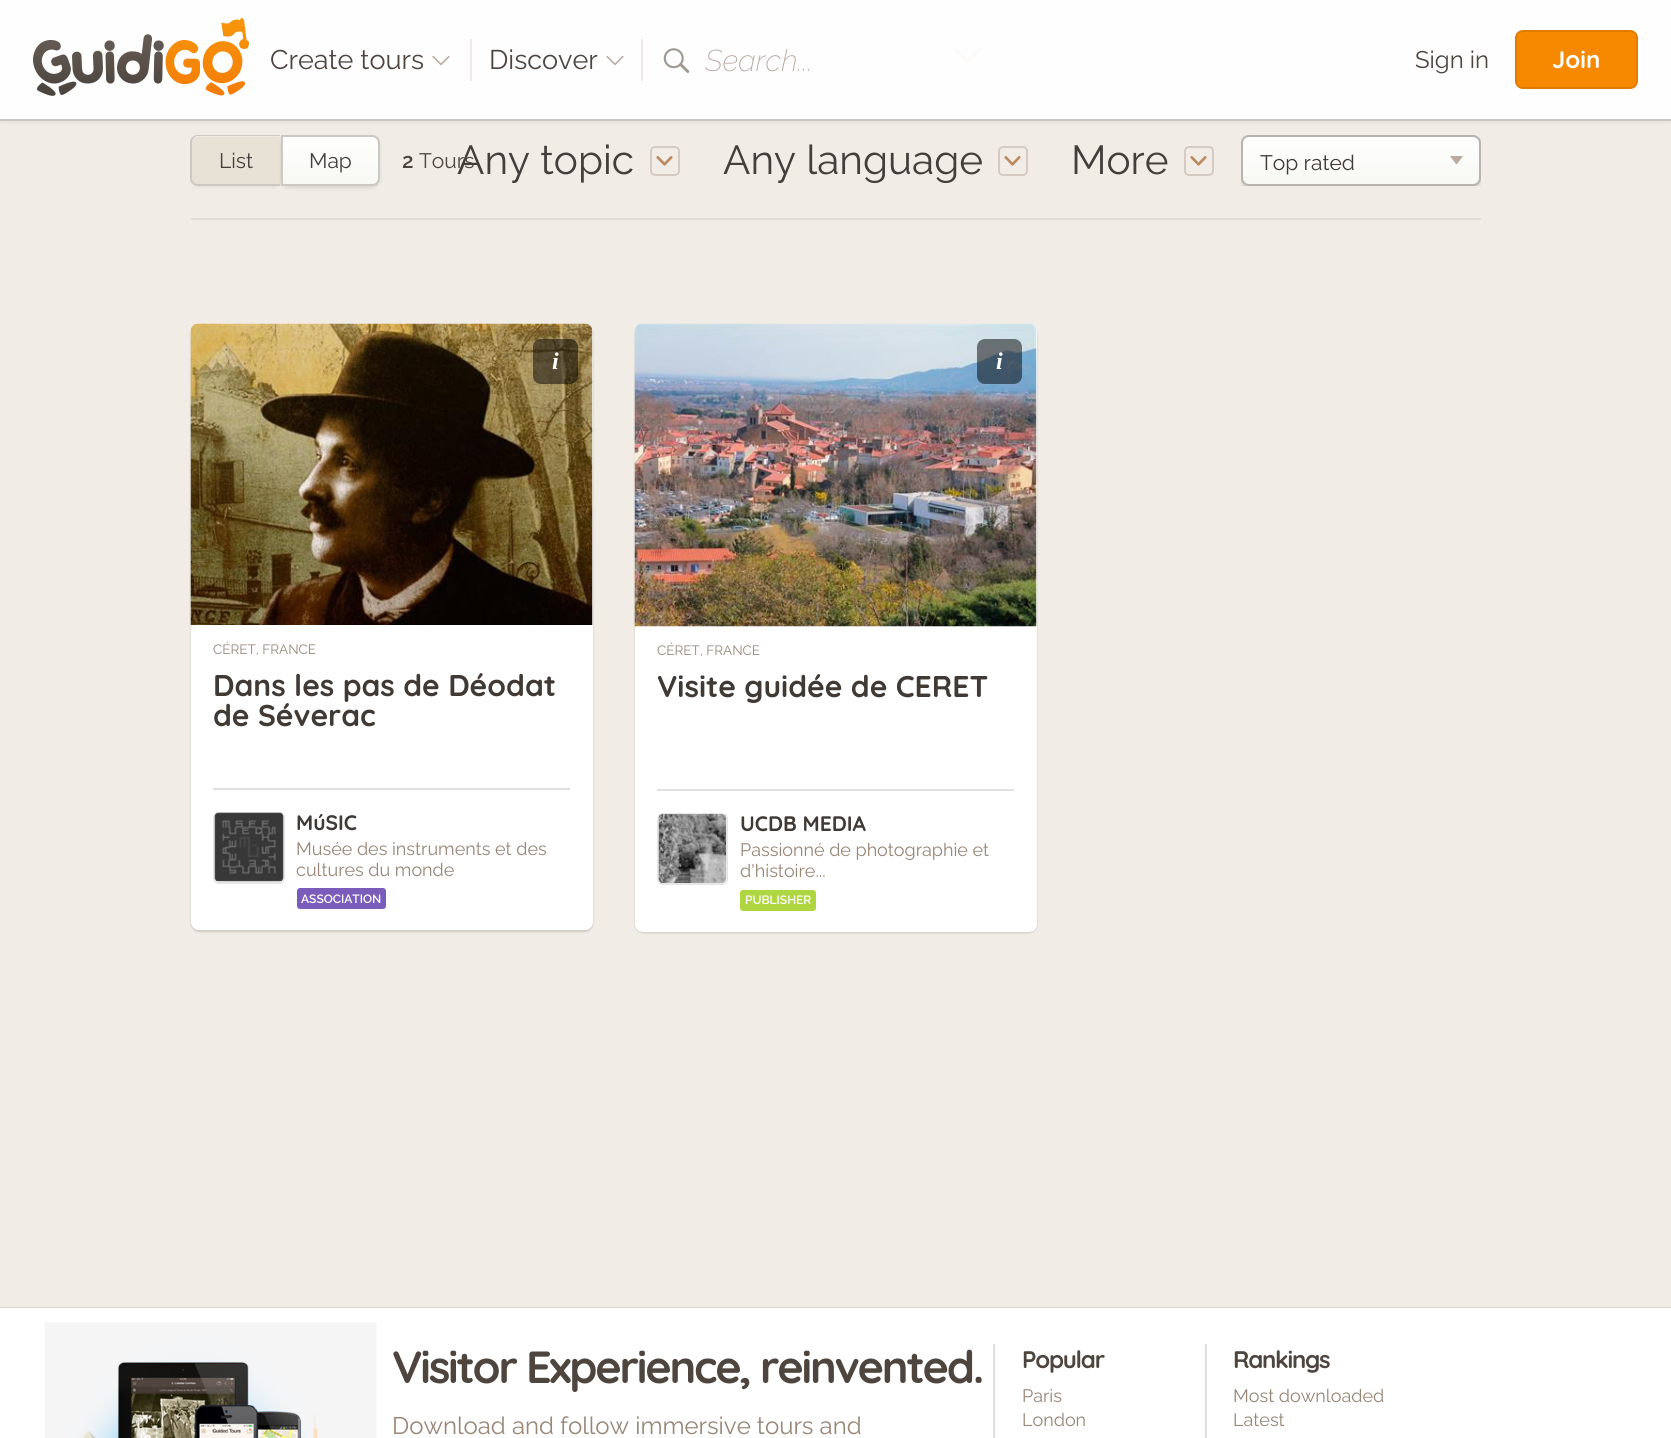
#include <cairo.h>
#include <math.h>
#include <stddef.h>


static void ink(cairo_t *ctx, unsigned color) {
    cairo_set_source_rgb(ctx, (color >> 16) / 255.0, (color >> 8 & 255) / 255.0, (color & 255) / 255.0);
}

static void write_spaced(cairo_t *ctx, double x, double y, const char *s, double letter, double word) {
    cairo_move_to(ctx, x, y);
    while (*s) {
        char ch[5] = {0};
        int n = 0;
        do ch[n++] = *s++; while ((*s & 0xC0) == 0x80);
        cairo_show_text(ctx, ch);
        cairo_rel_move_to(ctx, letter + word * (*ch == ' '), 0);
    }
}

static void round_path(cairo_t *ctx, double x, double y, double w, double h, double r) {
    cairo_new_sub_path(ctx);
    cairo_arc(ctx, x + w - r, y + h - r, r, 0, M_PI / 2);
    cairo_arc(ctx, x + r, y + h - r, r, M_PI / 2, M_PI);
    cairo_arc(ctx, x + r, y + r, r, M_PI, 1.5 * M_PI);
    cairo_arc(ctx, x + w - r, y + r, r, 1.5 * M_PI, 2 * M_PI);
    cairo_close_path(ctx);
}

static void blur_box(cairo_t *ctx, double x, double y, double w, double h, double r, double blur, double alpha) {
    cairo_push_group_with_content(ctx, CAIRO_CONTENT_ALPHA);
    cairo_set_operator(ctx, CAIRO_OPERATOR_SOURCE);
    for (int i = 15; i >= -15 && fmin(w, h) + blur * i / 3 > 0; i -= 2) {
        double e = blur * i / 6;
        cairo_set_source_rgba(ctx, 0, 0, 0, alpha * erfc((i - 1) / 8.5) / 2);
        round_path(ctx, x - e, y - e, w + 2 * e, h + 2 * e, fmax(0, fmin(r + e + blur * .6, fmin(w, h) / 2 + e)));
        cairo_fill(ctx);
    }
    cairo_pattern_t *soft = cairo_pop_group(ctx);
    cairo_mask(ctx, soft);
    cairo_pattern_destroy(soft);
}

static void paste(cairo_t *ctx, const char *path, double x, double y, double w, double h) {
    cairo_surface_t *image = cairo_image_surface_create_from_png(path);
    cairo_save(ctx);
    cairo_set_source_surface(ctx, image, x, y);
    cairo_rectangle(ctx, x, y, w, h);
    cairo_fill(ctx);
    cairo_restore(ctx);
    cairo_surface_destroy(image);
}

int main(void) {
    cairo_surface_t *surface = cairo_image_surface_create(CAIRO_FORMAT_RGB24, 1671, 1438);
    cairo_t *ctx = cairo_create(surface);
    cairo_font_options_t *options = cairo_font_options_create();
    cairo_font_options_set_hint_metrics(options, CAIRO_HINT_METRICS_OFF);
    cairo_font_options_set_hint_style(options, CAIRO_HINT_STYLE_NONE);
    cairo_set_font_options(ctx, options);
    cairo_set_miter_limit(ctx, 4);
    cairo_pattern_t *gradient;
    ink(ctx, 0xF1EDE6);
    cairo_paint(ctx);
    ink(ctx, 0xFFFEFE);
    cairo_rectangle(ctx, 0, 0, 1671, 119);
    cairo_fill(ctx);
    paste(ctx, "media/1.png", 953, 47, 29, 17);
    cairo_save(ctx);
    cairo_rectangle(ctx, 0, 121, 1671, 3);
    cairo_clip(ctx);
    ink(ctx, 0x000000);
    blur_box(ctx, 0, 2, 1671, 120, 0, 4, 0.07);
    cairo_restore(ctx);
    ink(ctx, 0xC8C4C1);
    cairo_rectangle(ctx, 0, 119, 1671, 2);
    cairo_fill(ctx);
    paste(ctx, "media/2.png", 33, 18, 216, 78);
    cairo_select_font_face(ctx, "Raleway", CAIRO_FONT_SLANT_NORMAL, CAIRO_FONT_WEIGHT_NORMAL);
    cairo_set_font_size(ctx, 27);
    ink(ctx, 0x4F453F);
    cairo_move_to(ctx, 270, 69);
    cairo_show_text(ctx, "Create tours");
    paste(ctx, "media/3.png", 432, 55, 18, 11);
    ink(ctx, 0xEEE9E7);
    cairo_rectangle(ctx, 470, 39, 2, 42);
    cairo_fill(ctx);
    ink(ctx, 0x4F453F);
    cairo_move_to(ctx, 489, 69);
    cairo_show_text(ctx, "Discover");
    paste(ctx, "media/3.png", 606, 55, 18, 11);
    ink(ctx, 0xEEE9E7);
    cairo_rectangle(ctx, 641, 39, 2, 42);
    cairo_fill(ctx);
    paste(ctx, "media/4.png", 663, 48, 27, 25);
    cairo_select_font_face(ctx, "Raleway Thin", CAIRO_FONT_SLANT_ITALIC, CAIRO_FONT_WEIGHT_NORMAL);
    cairo_set_font_size(ctx, 30);
    ink(ctx, 0xBBAAA0);
    cairo_move_to(ctx, 705, 71);
    cairo_show_text(ctx, "Search...");
    cairo_select_font_face(ctx, "Raleway", CAIRO_FONT_SLANT_NORMAL, CAIRO_FONT_WEIGHT_NORMAL);
    cairo_set_font_size(ctx, 24);
    ink(ctx, 0x4F453F);
    cairo_move_to(ctx, 1415, 68);
    cairo_show_text(ctx, "Sign in");
    ink(ctx, 0xF78901);
    round_path(ctx, 1515, 30, 123, 59, 8);
    cairo_fill(ctx);
    round_path(ctx, 1516, 31, 121, 57, 7);
    cairo_set_source_rgba(ctx, 0, 0, 0, 0.1);
    cairo_stroke(ctx);
    cairo_select_font_face(ctx, "Quicksand Light", CAIRO_FONT_SLANT_NORMAL, CAIRO_FONT_WEIGHT_NORMAL);
    ink(ctx, 0xFFFFFF);
    cairo_move_to(ctx, 1552, 68);
    cairo_show_text(ctx, "Join");
    ink(ctx, 0xE0DCD6);
    cairo_rectangle(ctx, 191, 218, 1290, 2);
    cairo_fill(ctx);
    cairo_select_font_face(ctx, "Raleway", CAIRO_FONT_SLANT_NORMAL, CAIRO_FONT_WEIGHT_NORMAL);
    cairo_set_font_size(ctx, 21);
    ink(ctx, 0x4F453F);
    cairo_move_to(ctx, 419, 168);
    cairo_show_text(ctx, "Tours");
    cairo_set_font_size(ctx, 40.5);
    ink(ctx, 0x423F3C);
    cairo_move_to(ctx, 457, 174);
    cairo_show_text(ctx, "Any topic");
    round_path(ctx, 651, 147, 28, 28, 4);
    ink(ctx, 0xD6CBC3);
    cairo_stroke(ctx);
    paste(ctx, "media/5.png", 656, 156, 17, 10);
    ink(ctx, 0x423F3C);
    cairo_move_to(ctx, 723, 174);
    cairo_show_text(ctx, "Any language");
    round_path(ctx, 999, 147, 28, 28, 4);
    ink(ctx, 0xD6CBC3);
    cairo_stroke(ctx);
    paste(ctx, "media/5.png", 1004, 156, 17, 10);
    ink(ctx, 0x423F3C);
    cairo_move_to(ctx, 1071, 174);
    cairo_show_text(ctx, "More");
    round_path(ctx, 1185, 147, 28, 28, 4);
    ink(ctx, 0xD6CBC3);
    cairo_stroke(ctx);
    paste(ctx, "media/5.png", 1190, 156, 17, 10);
    ink(ctx, 0x000000);
    blur_box(ctx, 191, 137, 90, 51, 8, 1, 0.05);
    ink(ctx, 0xE8E1D6);
    cairo_new_path(ctx);
    cairo_move_to(ctx, 198, 137);
    cairo_line_to(ctx, 281, 137);
    cairo_line_to(ctx, 281, 185);
    cairo_line_to(ctx, 198, 185);
    cairo_curve_to(ctx, 194.5, 185, 192, 182.5, 192, 179);
    cairo_line_to(ctx, 192, 143);
    cairo_curve_to(ctx, 192, 139.5, 194.5, 137, 198, 137);
    cairo_close_path(ctx);
    cairo_fill(ctx);
    ink(ctx, 0xCCC8C3);
    cairo_set_fill_rule(ctx, CAIRO_FILL_RULE_EVEN_ODD);
    cairo_new_path(ctx);
    cairo_move_to(ctx, 198, 135);
    cairo_line_to(ctx, 280, 135);
    cairo_line_to(ctx, 280, 186);
    cairo_line_to(ctx, 198, 186);
    cairo_curve_to(ctx, 194, 186, 190, 183, 190, 178);
    cairo_line_to(ctx, 190, 142);
    cairo_curve_to(ctx, 190, 138, 194, 135, 198, 135);
    cairo_close_path(ctx);
    cairo_move_to(ctx, 198, 136);
    cairo_line_to(ctx, 280, 136);
    cairo_line_to(ctx, 280, 184);
    cairo_line_to(ctx, 198, 184);
    cairo_curve_to(ctx, 195, 184, 192, 182, 192, 178);
    cairo_line_to(ctx, 192, 142);
    cairo_curve_to(ctx, 192, 139, 195, 136, 198, 136);
    cairo_close_path(ctx);
    cairo_fill(ctx);
    cairo_set_font_size(ctx, 21);
    ink(ctx, 0x423F3C);
    cairo_move_to(ctx, 219, 168);
    cairo_show_text(ctx, "List");
    ink(ctx, 0x000000);
    blur_box(ctx, 281, 137, 99, 51, 8, 1.5, 0.1);
    gradient = cairo_pattern_create_linear(330, 185, 330, 137);
    cairo_pattern_add_color_stop_rgba(gradient, 0, 0.969, 0.969, 0.953, 1);
    cairo_pattern_add_color_stop_rgba(gradient, 1, 1, 1, 1, 1);
    cairo_set_source(ctx, gradient);
    cairo_pattern_destroy(gradient);
    cairo_new_path(ctx);
    cairo_move_to(ctx, 282, 137);
    cairo_line_to(ctx, 372, 137);
    cairo_curve_to(ctx, 375.5, 137, 378, 139.5, 378, 143);
    cairo_line_to(ctx, 378, 179);
    cairo_curve_to(ctx, 378, 182.5, 375.5, 185, 372, 185);
    cairo_line_to(ctx, 282, 185);
    cairo_close_path(ctx);
    cairo_fill(ctx);
    cairo_new_path(ctx);
    cairo_move_to(ctx, 282, 136);
    cairo_line_to(ctx, 372, 136);
    cairo_curve_to(ctx, 376, 136, 379, 139, 379, 143);
    cairo_line_to(ctx, 379, 178);
    cairo_curve_to(ctx, 379, 182, 376, 185, 372, 185);
    cairo_line_to(ctx, 282, 185);
    cairo_close_path(ctx);
    ink(ctx, 0xCCC8C3);
    cairo_stroke(ctx);
    ink(ctx, 0x423F3C);
    cairo_move_to(ctx, 309, 168);
    cairo_show_text(ctx, "Map");
    cairo_select_font_face(ctx, "Raleway SemiBold", CAIRO_FONT_SLANT_NORMAL, CAIRO_FONT_WEIGHT_NORMAL);
    ink(ctx, 0x4F453F);
    cairo_move_to(ctx, 402, 168);
    cairo_show_text(ctx, "2");
    cairo_save(ctx);
    cairo_set_fill_rule(ctx, CAIRO_FILL_RULE_WINDING);
    cairo_rectangle(ctx, 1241, 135, 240, 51);
    cairo_clip(ctx);
    ink(ctx, 0x000000);
    blur_box(ctx, 1241, 137, 240, 51, 8, 2, 0.15);
    cairo_restore(ctx);
    gradient = cairo_pattern_create_linear(1361, 185, 1361, 137);
    cairo_pattern_add_color_stop_rgba(gradient, 0, 0.969, 0.969, 0.953, 1);
    cairo_pattern_add_color_stop_rgba(gradient, 1, 1, 1, 1, 1);
    cairo_set_source(ctx, gradient);
    cairo_pattern_destroy(gradient);
    round_path(ctx, 1242, 137, 237, 48, 6);
    cairo_fill(ctx);
    round_path(ctx, 1242, 136, 238, 49, 7);
    ink(ctx, 0xB8B4B0);
    cairo_stroke(ctx);
    cairo_select_font_face(ctx, "Raleway", CAIRO_FONT_SLANT_NORMAL, CAIRO_FONT_WEIGHT_NORMAL);
    ink(ctx, 0x413934);
    cairo_move_to(ctx, 1260, 170);
    cairo_show_text(ctx, "Top rated");
    paste(ctx, "media/6.png", 1450, 156, 13, 9);
    ink(ctx, 0xEEEEEE);
    cairo_rectangle(ctx, 191, 324, 402, 606);
    cairo_fill(ctx);
    ink(ctx, 0x000000);
    blur_box(ctx, 191, 326, 402, 606, 8, 1, 0.15);
    ink(ctx, 0xFFFFFF);
    round_path(ctx, 191, 324, 402, 606, 8);
    cairo_fill(ctx);
    paste(ctx, "media/7.png", 190, 323, 403, 302);
    cairo_set_source_rgba(ctx, 0, 0, 0, 0.5);
    round_path(ctx, 533, 339, 45, 45, 8);
    cairo_fill(ctx);
    cairo_select_font_face(ctx, "Liberation Serif", CAIRO_FONT_SLANT_ITALIC, CAIRO_FONT_WEIGHT_BOLD);
    cairo_set_font_size(ctx, 24);
    ink(ctx, 0xFFFFFF);
    cairo_move_to(ctx, 552, 369);
    cairo_show_text(ctx, "i");
    cairo_select_font_face(ctx, "Raleway", CAIRO_FONT_SLANT_NORMAL, CAIRO_FONT_WEIGHT_NORMAL);
    cairo_set_font_size(ctx, 13.5);
    ink(ctx, 0x988676);
    cairo_move_to(ctx, 213, 654);
    cairo_show_text(ctx, "CÉRET, FRANCE");
    cairo_select_font_face(ctx, "Quicksand Light", CAIRO_FONT_SLANT_NORMAL, CAIRO_FONT_WEIGHT_NORMAL);
    cairo_set_font_size(ctx, 30);
    ink(ctx, 0x413934);
    cairo_move_to(ctx, 213, 696);
    cairo_show_text(ctx, "Dans les pas de Déodat");
    cairo_move_to(ctx, 213, 726);
    cairo_show_text(ctx, "de Séverac");
    ink(ctx, 0xE0E0E0);
    cairo_rectangle(ctx, 213, 788, 357, 2);
    cairo_fill(ctx);
    round_path(ctx, 214, 813, 70, 70, 5);
    ink(ctx, 0xE6E6E6);
    cairo_stroke(ctx);
    paste(ctx, "media/8.png", 214, 812, 70, 70);
    cairo_set_font_size(ctx, 21);
    ink(ctx, 0x413934);
    cairo_move_to(ctx, 296, 830);
    cairo_show_text(ctx, "MúSIC");
    cairo_select_font_face(ctx, "Raleway", CAIRO_FONT_SLANT_NORMAL, CAIRO_FONT_WEIGHT_NORMAL);
    cairo_set_font_size(ctx, 18);
    ink(ctx, 0x988676);
    cairo_move_to(ctx, 296, 855);
    cairo_show_text(ctx, "Musée des instruments et des");
    cairo_move_to(ctx, 296, 876);
    cairo_show_text(ctx, "cultures du monde");
    ink(ctx, 0x7A5CBA);
    round_path(ctx, 297, 888, 89, 21, 3);
    cairo_fill(ctx);
    cairo_select_font_face(ctx, "Raleway SemiBold", CAIRO_FONT_SLANT_NORMAL, CAIRO_FONT_WEIGHT_NORMAL);
    cairo_set_font_size(ctx, 12);
    ink(ctx, 0xFFFFFF);
    cairo_move_to(ctx, 301, 903);
    cairo_show_text(ctx, "ASSOCIATION");
    ink(ctx, 0xEEEEEE);
    cairo_rectangle(ctx, 635, 324, 402, 608);
    cairo_fill(ctx);
    ink(ctx, 0x000000);
    blur_box(ctx, 635, 326, 402, 607, 8, 1, 0.15);
    ink(ctx, 0xFFFFFF);
    round_path(ctx, 635, 324, 402, 608, 8);
    cairo_fill(ctx);
    paste(ctx, "media/9.png", 634, 323, 403, 304);
    cairo_set_source_rgba(ctx, 0, 0, 0, 0.5);
    round_path(ctx, 977, 339, 45, 45, 8);
    cairo_fill(ctx);
    cairo_select_font_face(ctx, "Liberation Serif", CAIRO_FONT_SLANT_ITALIC, CAIRO_FONT_WEIGHT_BOLD);
    cairo_set_font_size(ctx, 24);
    ink(ctx, 0xFFFFFF);
    cairo_move_to(ctx, 996, 369);
    cairo_show_text(ctx, "i");
    cairo_select_font_face(ctx, "Raleway", CAIRO_FONT_SLANT_NORMAL, CAIRO_FONT_WEIGHT_NORMAL);
    cairo_set_font_size(ctx, 13.5);
    ink(ctx, 0x988676);
    cairo_move_to(ctx, 657, 655);
    cairo_show_text(ctx, "CÉRET, FRANCE");
    cairo_select_font_face(ctx, "Quicksand Light", CAIRO_FONT_SLANT_NORMAL, CAIRO_FONT_WEIGHT_NORMAL);
    cairo_set_font_size(ctx, 30);
    ink(ctx, 0x413934);
    cairo_move_to(ctx, 657, 697);
    cairo_show_text(ctx, "Visite guidée de CERET");
    ink(ctx, 0xE0E0E0);
    cairo_rectangle(ctx, 657, 789, 357, 2);
    cairo_fill(ctx);
    round_path(ctx, 658, 814, 69, 70, 5);
    ink(ctx, 0xE6E6E6);
    cairo_stroke(ctx);
    paste(ctx, "media/10.png", 658, 814, 68, 69);
    cairo_set_font_size(ctx, 21);
    ink(ctx, 0x413934);
    cairo_move_to(ctx, 740, 831);
    cairo_show_text(ctx, "UCDB MEDIA");
    cairo_select_font_face(ctx, "Raleway", CAIRO_FONT_SLANT_NORMAL, CAIRO_FONT_WEIGHT_NORMAL);
    cairo_set_font_size(ctx, 18);
    ink(ctx, 0x988676);
    cairo_move_to(ctx, 740, 856);
    cairo_show_text(ctx, "Passionné de photographie et");
    cairo_move_to(ctx, 740, 877);
    cairo_show_text(ctx, "d'histoire...");
    ink(ctx, 0xAFD641);
    round_path(ctx, 740, 890, 76, 21, 3);
    cairo_fill(ctx);
    cairo_select_font_face(ctx, "Raleway SemiBold", CAIRO_FONT_SLANT_NORMAL, CAIRO_FONT_WEIGHT_NORMAL);
    cairo_set_font_size(ctx, 12);
    ink(ctx, 0xFFFFFF);
    cairo_move_to(ctx, 745, 904);
    cairo_show_text(ctx, "PUBLISHER");
    ink(ctx, 0xD8D5CF);
    cairo_rectangle(ctx, 0, 1307, 1671, 1);
    cairo_fill(ctx);
    ink(ctx, 0xFFFFFF);
    cairo_rectangle(ctx, 0, 1308, 1671, 130);
    cairo_fill(ctx);
    paste(ctx, "media/11.png", 45, 1322, 332, 116);
    cairo_select_font_face(ctx, "Quicksand Light", CAIRO_FONT_SLANT_NORMAL, CAIRO_FONT_WEIGHT_NORMAL);
    cairo_set_font_size(ctx, 45);
    ink(ctx, 0x4F453F);
    write_spaced(ctx, 392, 1383, "Visitor Experience, reinvented.", -2.25, 0);
    cairo_select_font_face(ctx, "Raleway", CAIRO_FONT_SLANT_NORMAL, CAIRO_FONT_WEIGHT_NORMAL);
    cairo_set_font_size(ctx, 24);
    ink(ctx, 0x988676);
    cairo_move_to(ctx, 392, 1434);
    cairo_show_text(ctx, "Download and follow immersive tours and");
    ink(ctx, 0xE0E0E0);
    cairo_rectangle(ctx, 993, 1344, 2, 94);
    cairo_fill(ctx);
    cairo_select_font_face(ctx, "Quicksand Light", CAIRO_FONT_SLANT_NORMAL, CAIRO_FONT_WEIGHT_NORMAL);
    ink(ctx, 0x4F453F);
    write_spaced(ctx, 1022, 1368, "Popular", -1.25, 0);
    cairo_select_font_face(ctx, "Raleway", CAIRO_FONT_SLANT_NORMAL, CAIRO_FONT_WEIGHT_NORMAL);
    cairo_set_font_size(ctx, 18);
    ink(ctx, 0x988676);
    cairo_move_to(ctx, 1022, 1402);
    cairo_show_text(ctx, "Paris");
    cairo_move_to(ctx, 1022, 1426);
    cairo_show_text(ctx, "London");
    ink(ctx, 0xE0E0E0);
    cairo_rectangle(ctx, 1205, 1344, 2, 94);
    cairo_fill(ctx);
    cairo_select_font_face(ctx, "Quicksand Light", CAIRO_FONT_SLANT_NORMAL, CAIRO_FONT_WEIGHT_NORMAL);
    cairo_set_font_size(ctx, 24);
    ink(ctx, 0x4F453F);
    write_spaced(ctx, 1233, 1368, "Rankings", -1.25, 0);
    cairo_select_font_face(ctx, "Raleway", CAIRO_FONT_SLANT_NORMAL, CAIRO_FONT_WEIGHT_NORMAL);
    cairo_set_font_size(ctx, 18);
    ink(ctx, 0x988676);
    cairo_move_to(ctx, 1233, 1402);
    cairo_show_text(ctx, "Most downloaded");
    cairo_move_to(ctx, 1233, 1426);
    cairo_show_text(ctx, "Latest");
    cairo_surface_write_to_png(surface, "image.png");
    cairo_font_options_destroy(options);
    cairo_destroy(ctx);
    cairo_surface_destroy(surface);
    return 0;
}
